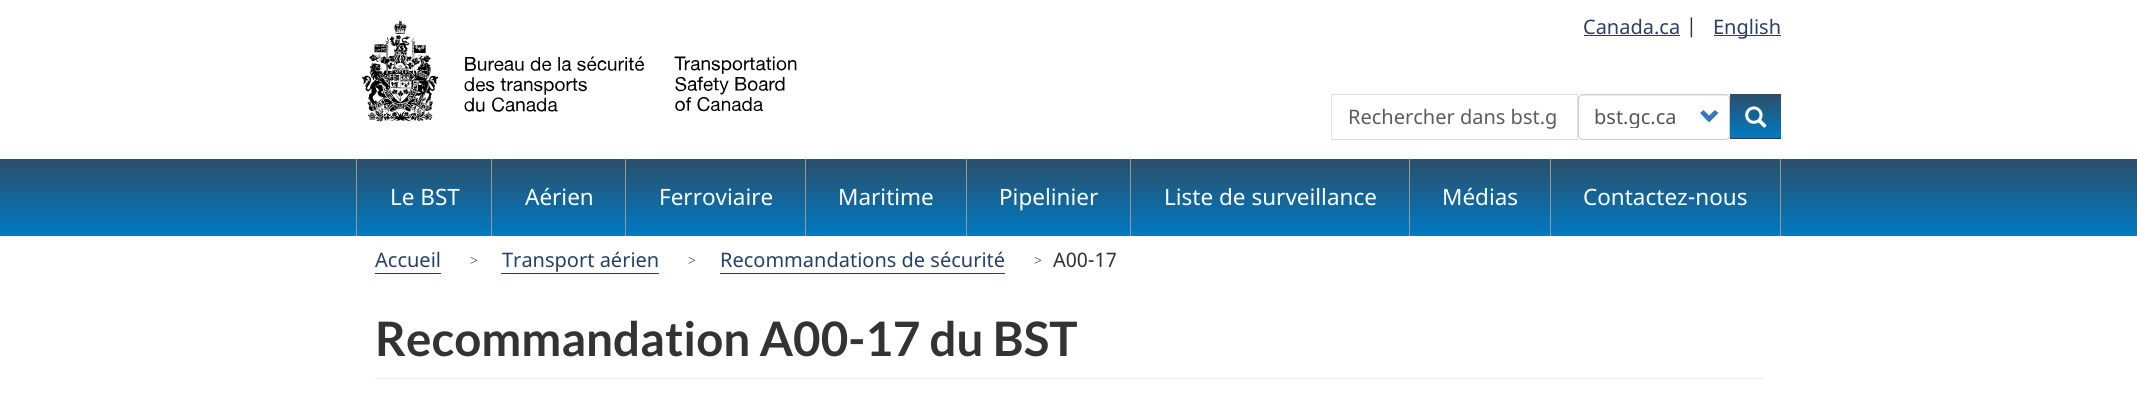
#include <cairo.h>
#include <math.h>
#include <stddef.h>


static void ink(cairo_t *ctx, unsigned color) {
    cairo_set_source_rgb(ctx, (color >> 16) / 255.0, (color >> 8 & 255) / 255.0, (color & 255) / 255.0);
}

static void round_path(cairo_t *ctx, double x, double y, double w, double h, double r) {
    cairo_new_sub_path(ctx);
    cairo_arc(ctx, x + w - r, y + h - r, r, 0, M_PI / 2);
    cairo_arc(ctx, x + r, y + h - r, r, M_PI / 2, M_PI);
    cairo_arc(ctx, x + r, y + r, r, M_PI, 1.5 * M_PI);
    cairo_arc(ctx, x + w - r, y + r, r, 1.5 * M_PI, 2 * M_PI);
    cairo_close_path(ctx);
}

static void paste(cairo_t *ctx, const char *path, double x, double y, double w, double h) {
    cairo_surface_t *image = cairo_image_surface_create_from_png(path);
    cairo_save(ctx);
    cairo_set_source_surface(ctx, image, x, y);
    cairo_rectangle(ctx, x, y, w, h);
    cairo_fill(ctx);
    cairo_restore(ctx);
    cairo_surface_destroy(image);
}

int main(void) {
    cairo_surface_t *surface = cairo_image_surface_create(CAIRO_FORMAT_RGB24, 2137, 401);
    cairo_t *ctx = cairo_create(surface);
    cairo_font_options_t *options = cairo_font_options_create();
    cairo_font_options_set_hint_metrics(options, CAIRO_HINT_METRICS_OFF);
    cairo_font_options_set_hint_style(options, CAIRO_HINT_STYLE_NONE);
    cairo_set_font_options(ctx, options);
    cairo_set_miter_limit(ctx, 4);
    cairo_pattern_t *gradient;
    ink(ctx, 0xFFFFFF);
    cairo_paint(ctx);
    paste(ctx, "media/1.png", 362, 20, 435, 102);
    cairo_rectangle(ctx, 1331.5, 94.5, 246, 45);
    ink(ctx, 0xE0E0E0);
    cairo_set_line_width(ctx, 1);
    cairo_stroke(ctx);
    cairo_select_font_face(ctx, "Noto Sans", CAIRO_FONT_SLANT_NORMAL, CAIRO_FONT_WEIGHT_NORMAL);
    cairo_set_font_size(ctx, 20);
    ink(ctx, 0x5C5C5C);
    cairo_move_to(ctx, 1348, 124);
    cairo_show_text(ctx, "Rechercher dans bst.g");
    ink(ctx, 0xECECEC);
    cairo_new_path(ctx);
    cairo_move_to(ctx, 1582, 96);
    cairo_line_to(ctx, 1725, 96);
    cairo_curve_to(ctx, 1727, 96, 1729, 98, 1729, 100);
    cairo_curve_to(ctx, 1729, 98, 1728, 96, 1726, 95);
    cairo_line_to(ctx, 1583, 95);
    cairo_curve_to(ctx, 1580, 95, 1579, 97, 1579, 100);
    cairo_curve_to(ctx, 1579, 98, 1580, 96, 1582, 96);
    cairo_close_path(ctx);
    cairo_fill(ctx);
    round_path(ctx, 1578.5, 94.5, 151, 45, 4.5);
    ink(ctx, 0xCCCCCC);
    cairo_stroke(ctx);
    cairo_save(ctx);
    cairo_rectangle(ctx, 1594, 108, 95, 20);
    cairo_clip(ctx);
    ink(ctx, 0x555555);
    cairo_move_to(ctx, 1594, 124);
    cairo_show_text(ctx, "bst.gc.ca");
    cairo_restore(ctx);
    ink(ctx, 0x337AB7);
    cairo_new_path(ctx);
    cairo_move_to(ctx, 1718.5, 113);
    cairo_line_to(ctx, 1709, 122.5);
    cairo_line_to(ctx, 1700, 113);
    cairo_line_to(ctx, 1703.5, 110);
    cairo_line_to(ctx, 1709, 115.5);
    cairo_line_to(ctx, 1715, 110);
    cairo_close_path(ctx);
    cairo_fill(ctx);
    gradient = cairo_pattern_create_linear(1756, 94, 1756, 138);
    cairo_pattern_add_color_stop_rgba(gradient, 0, 0.169, 0.31, 0.412, 1);
    cairo_pattern_add_color_stop_rgba(gradient, 1, 0, 0.478, 0.765, 1);
    cairo_set_source(ctx, gradient);
    cairo_pattern_destroy(gradient);
    cairo_rectangle(ctx, 1730, 94, 51, 44);
    cairo_fill(ctx);
    ink(ctx, 0x26374A);
    cairo_rectangle(ctx, 1730, 138, 51, 1);
    cairo_fill(ctx);
    paste(ctx, "media/2.png", 1745, 106, 22, 22);
    ink(ctx, 0x284162);
    cairo_move_to(ctx, 1583, 34);
    cairo_show_text(ctx, "Canada.ca");
    cairo_rectangle(ctx, 1584, 35, 96, 1);
    cairo_fill(ctx);
    ink(ctx, 0x333333);
    cairo_move_to(ctx, 1686, 34);
    cairo_show_text(ctx, "|");
    ink(ctx, 0x284162);
    cairo_rectangle(ctx, 1714, 35, 67, 1);
    cairo_fill(ctx);
    cairo_move_to(ctx, 1713, 34);
    cairo_show_text(ctx, "English");
    gradient = cairo_pattern_create_linear(1069, 159, 1069, 236);
    cairo_pattern_add_color_stop_rgba(gradient, 0, 0.169, 0.31, 0.412, 1);
    cairo_pattern_add_color_stop_rgba(gradient, 1, 0, 0.478, 0.765, 1);
    cairo_set_source(ctx, gradient);
    cairo_pattern_destroy(gradient);
    cairo_rectangle(ctx, 0, 159, 2137, 77);
    cairo_fill(ctx);
    ink(ctx, 0x999999);
    cairo_rectangle(ctx, 356, 159, 1, 77);
    cairo_fill(ctx);
    cairo_set_font_size(ctx, 22.5);
    ink(ctx, 0xFFFFFF);
    cairo_move_to(ctx, 390, 205);
    cairo_show_text(ctx, "Le BST");
    ink(ctx, 0x999999);
    cairo_rectangle(ctx, 491, 159, 1, 77);
    cairo_fill(ctx);
    ink(ctx, 0xFFFFFF);
    cairo_move_to(ctx, 525, 205);
    cairo_show_text(ctx, "Aérien");
    ink(ctx, 0x999999);
    cairo_rectangle(ctx, 625, 159, 1, 77);
    cairo_fill(ctx);
    ink(ctx, 0xFFFFFF);
    cairo_move_to(ctx, 659, 205);
    cairo_show_text(ctx, "Ferroviaire");
    ink(ctx, 0x999999);
    cairo_rectangle(ctx, 805, 159, 1, 77);
    cairo_fill(ctx);
    ink(ctx, 0xFFFFFF);
    cairo_move_to(ctx, 838, 205);
    cairo_show_text(ctx, "Maritime");
    ink(ctx, 0x999999);
    cairo_rectangle(ctx, 966, 159, 1, 77);
    cairo_fill(ctx);
    ink(ctx, 0xFFFFFF);
    cairo_move_to(ctx, 999, 205);
    cairo_show_text(ctx, "Pipelinier");
    ink(ctx, 0x999999);
    cairo_rectangle(ctx, 1130, 159, 1, 77);
    cairo_fill(ctx);
    ink(ctx, 0xFFFFFF);
    cairo_move_to(ctx, 1164, 205);
    cairo_show_text(ctx, "Liste de surveillance");
    ink(ctx, 0x999999);
    cairo_rectangle(ctx, 1409, 159, 1, 77);
    cairo_fill(ctx);
    ink(ctx, 0xFFFFFF);
    cairo_move_to(ctx, 1442, 205);
    cairo_show_text(ctx, "Médias");
    ink(ctx, 0x999999);
    cairo_rectangle(ctx, 1780, 159, 1, 77);
    cairo_fill(ctx);
    cairo_rectangle(ctx, 1550, 159, 1, 77);
    cairo_fill(ctx);
    ink(ctx, 0xFFFFFF);
    cairo_move_to(ctx, 1583, 205);
    cairo_show_text(ctx, "Contactez-nous");
    cairo_set_font_size(ctx, 20);
    ink(ctx, 0x284162);
    cairo_move_to(ctx, 375, 267);
    cairo_show_text(ctx, "Accueil");
    cairo_rectangle(ctx, 375, 273, 66, 1);
    cairo_fill(ctx);
    cairo_select_font_face(ctx, "Liberation Serif", CAIRO_FONT_SLANT_NORMAL, CAIRO_FONT_WEIGHT_NORMAL);
    cairo_set_font_size(ctx, 14);
    ink(ctx, 0x333333);
    cairo_move_to(ctx, 470, 265);
    cairo_show_text(ctx, ">");
    cairo_select_font_face(ctx, "Noto Sans", CAIRO_FONT_SLANT_NORMAL, CAIRO_FONT_WEIGHT_NORMAL);
    cairo_set_font_size(ctx, 20);
    ink(ctx, 0x284162);
    cairo_move_to(ctx, 502, 267);
    cairo_show_text(ctx, "Transport aérien");
    cairo_rectangle(ctx, 501, 273, 158, 1);
    cairo_fill(ctx);
    cairo_select_font_face(ctx, "Liberation Serif", CAIRO_FONT_SLANT_NORMAL, CAIRO_FONT_WEIGHT_NORMAL);
    cairo_set_font_size(ctx, 14);
    ink(ctx, 0x333333);
    cairo_move_to(ctx, 688, 265);
    cairo_show_text(ctx, ">");
    cairo_select_font_face(ctx, "Noto Sans", CAIRO_FONT_SLANT_NORMAL, CAIRO_FONT_WEIGHT_NORMAL);
    cairo_set_font_size(ctx, 20);
    ink(ctx, 0x284162);
    cairo_move_to(ctx, 720, 267);
    cairo_show_text(ctx, "Recommandations de sécurité");
    cairo_rectangle(ctx, 720, 273, 285, 1);
    cairo_fill(ctx);
    cairo_select_font_face(ctx, "Liberation Serif", CAIRO_FONT_SLANT_NORMAL, CAIRO_FONT_WEIGHT_NORMAL);
    cairo_set_font_size(ctx, 14);
    ink(ctx, 0x333333);
    cairo_move_to(ctx, 1034, 265);
    cairo_show_text(ctx, ">");
    cairo_select_font_face(ctx, "Noto Sans", CAIRO_FONT_SLANT_NORMAL, CAIRO_FONT_WEIGHT_NORMAL);
    cairo_set_font_size(ctx, 20);
    cairo_move_to(ctx, 1053, 267);
    cairo_show_text(ctx, "A00-17");
    ink(ctx, 0xEEEEEE);
    cairo_rectangle(ctx, 375, 378, 1388, 1);
    cairo_fill(ctx);
    cairo_select_font_face(ctx, "Lato", CAIRO_FONT_SLANT_NORMAL, CAIRO_FONT_WEIGHT_BOLD);
    cairo_set_font_size(ctx, 47.5);
    ink(ctx, 0x333333);
    cairo_move_to(ctx, 375, 356);
    cairo_show_text(ctx, "Recommandation A00-17 du BST");
    cairo_surface_write_to_png(surface, "image.png");
    cairo_font_options_destroy(options);
    cairo_destroy(ctx);
    cairo_surface_destroy(surface);
    return 0;
}
